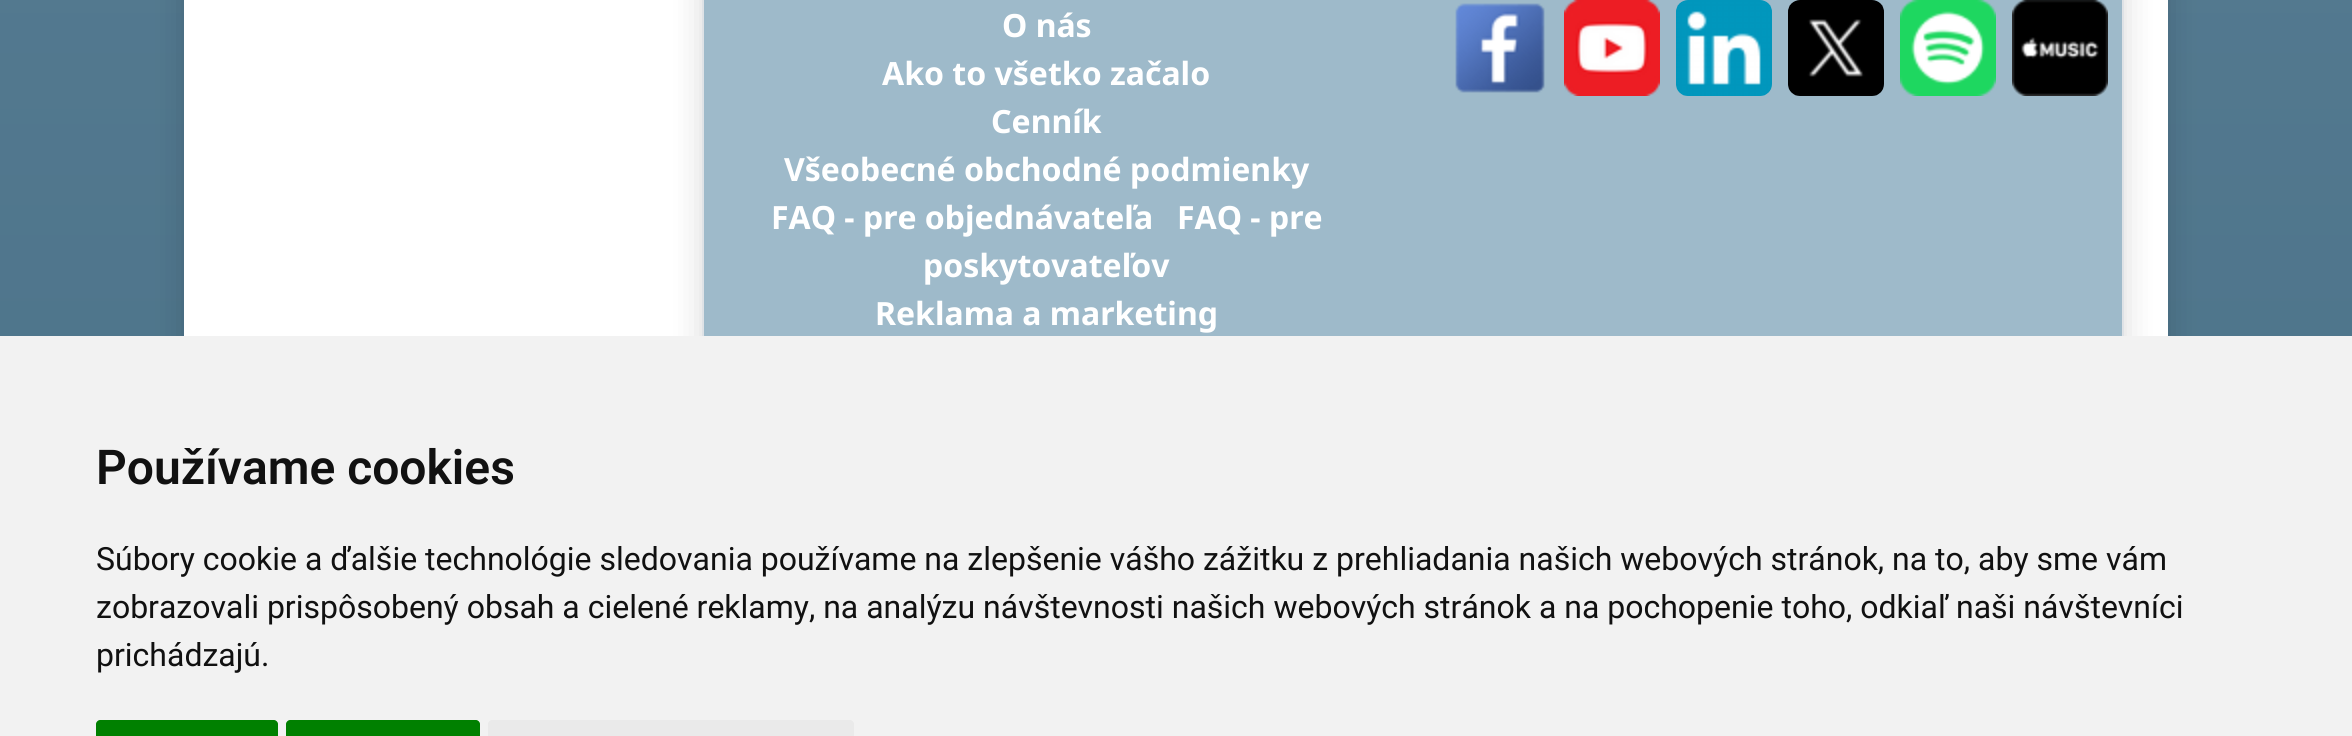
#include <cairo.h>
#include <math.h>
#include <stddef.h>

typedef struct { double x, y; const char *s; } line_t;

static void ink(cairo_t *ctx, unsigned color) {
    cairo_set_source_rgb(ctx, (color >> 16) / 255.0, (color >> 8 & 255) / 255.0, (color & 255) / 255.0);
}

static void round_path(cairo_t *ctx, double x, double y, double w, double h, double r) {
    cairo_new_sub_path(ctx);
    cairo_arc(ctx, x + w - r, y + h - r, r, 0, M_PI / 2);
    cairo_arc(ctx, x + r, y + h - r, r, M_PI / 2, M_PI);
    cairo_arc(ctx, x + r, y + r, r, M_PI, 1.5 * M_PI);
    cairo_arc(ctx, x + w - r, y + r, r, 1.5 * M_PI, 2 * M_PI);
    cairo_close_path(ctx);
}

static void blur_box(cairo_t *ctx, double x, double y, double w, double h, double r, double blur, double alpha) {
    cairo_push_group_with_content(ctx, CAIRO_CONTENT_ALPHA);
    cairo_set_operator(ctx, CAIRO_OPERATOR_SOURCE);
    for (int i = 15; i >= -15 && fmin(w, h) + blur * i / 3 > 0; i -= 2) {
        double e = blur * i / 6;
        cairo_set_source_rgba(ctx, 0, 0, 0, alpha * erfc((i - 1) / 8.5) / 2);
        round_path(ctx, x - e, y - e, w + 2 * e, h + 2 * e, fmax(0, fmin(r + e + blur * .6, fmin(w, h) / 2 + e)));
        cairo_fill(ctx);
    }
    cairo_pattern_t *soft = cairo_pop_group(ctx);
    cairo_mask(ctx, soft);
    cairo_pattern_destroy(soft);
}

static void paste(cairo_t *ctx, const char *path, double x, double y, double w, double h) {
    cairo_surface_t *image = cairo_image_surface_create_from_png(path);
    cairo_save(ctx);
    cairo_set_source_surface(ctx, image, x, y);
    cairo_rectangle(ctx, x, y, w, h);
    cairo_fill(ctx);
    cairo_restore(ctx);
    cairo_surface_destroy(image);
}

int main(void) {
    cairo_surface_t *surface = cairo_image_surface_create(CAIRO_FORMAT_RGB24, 2352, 736);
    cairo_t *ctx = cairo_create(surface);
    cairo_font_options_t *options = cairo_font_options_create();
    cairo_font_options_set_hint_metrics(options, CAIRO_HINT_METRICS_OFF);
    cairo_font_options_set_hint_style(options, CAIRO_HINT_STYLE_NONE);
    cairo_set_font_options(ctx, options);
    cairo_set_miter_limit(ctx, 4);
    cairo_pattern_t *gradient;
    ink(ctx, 0xFFFFFF);
    cairo_paint(ctx);
    gradient = cairo_pattern_create_linear(1176, -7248, 1176, 736);
    cairo_pattern_add_color_stop_rgba(gradient, 0, 0.62, 0.729, 0.792, 1);
    cairo_pattern_add_color_stop_rgba(gradient, 1, 0.294, 0.447, 0.537, 1);
    cairo_set_source(ctx, gradient);
    cairo_pattern_destroy(gradient);
    cairo_rectangle(ctx, 0, 0, 2352, 336);
    cairo_fill(ctx);
    ink(ctx, 0x000000);
    blur_box(ctx, 184, -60, 1984, 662, 12, 16, 0.15);
    ink(ctx, 0xFFFFFF);
    cairo_rectangle(ctx, 184, 0, 1984, 336);
    cairo_fill(ctx);
    ink(ctx, 0x000000);
    blur_box(ctx, 702, -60, 1422, 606, 12, 16, 0.15);
    ink(ctx, 0x9EBACA);
    cairo_rectangle(ctx, 704, 0, 1418, 336);
    cairo_fill(ctx);
    cairo_rectangle(ctx, 703, -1, 1420, 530);
    ink(ctx, 0xDEE2E6);
    cairo_stroke(ctx);
    cairo_select_font_face(ctx, "Noto Sans", CAIRO_FONT_SLANT_NORMAL, CAIRO_FONT_WEIGHT_BOLD);
    cairo_set_font_size(ctx, 32);
    ink(ctx, 0xFFFFFF);
    {
        static const line_t items[] = {
            {1002, 37, "O nás"},
            {882, 85, "Ako to všetko začalo"},
            {991, 133, "Cenník"},
            {784, 181, "Všeobecné obchodné podmienky"},
            {771, 229, "FAQ - pre objednávateľa"},
            {1177, 229, "FAQ - pre"},
            {923, 277, "poskytovateľov"},
            {875, 325, "Reklama a marketing"},
        };
        for (size_t i = 0; i < sizeof items / sizeof *items; i++) {
            cairo_move_to(ctx, items[i].x, items[i].y);
            cairo_show_text(ctx, items[i].s);
        }
    }
    paste(ctx, "media/1.png", 1455, 3, 90, 90);
    paste(ctx, "media/2.png", 1564, 0, 96, 96);
    paste(ctx, "media/3.png", 1676, 0, 96, 96);
    paste(ctx, "media/4.png", 1788, 0, 96, 96);
    paste(ctx, "media/5.png", 1900, 0, 96, 96);
    paste(ctx, "media/6.png", 2012, 0, 96, 96);
    ink(ctx, 0xF2F2F2);
    cairo_rectangle(ctx, 0, 336, 2352, 400);
    cairo_fill(ctx);
    cairo_select_font_face(ctx, "Roboto SemiBold", CAIRO_FONT_SLANT_NORMAL, CAIRO_FONT_WEIGHT_NORMAL);
    cairo_set_font_size(ctx, 48);
    ink(ctx, 0x111111);
    cairo_move_to(ctx, 96, 484);
    cairo_show_text(ctx, "Používame cookies");
    cairo_select_font_face(ctx, "Roboto", CAIRO_FONT_SLANT_NORMAL, CAIRO_FONT_WEIGHT_NORMAL);
    cairo_set_font_size(ctx, 32);
    {
        static const line_t items[] = {
            {96, 570, "Súbory cookie a ďalšie technológie sledovania používame na zlepšenie vášho zážitku z prehliadania našich webových stránok, na to, aby sme vám"},
            {96, 618, "zobrazovali prispôsobený obsah a cielené reklamy, na analýzu návštevnosti našich webových stránok a na pochopenie toho, odkiaľ naši návštevníci"},
            {96, 666, "prichádzajú."},
        };
        for (size_t i = 0; i < sizeof items / sizeof *items; i++) {
            cairo_move_to(ctx, items[i].x, items[i].y);
            cairo_show_text(ctx, items[i].s);
        }
    }
    ink(ctx, 0x008000);
    cairo_new_path(ctx);
    cairo_move_to(ctx, 100, 720);
    cairo_line_to(ctx, 274, 720);
    cairo_curve_to(ctx, 276, 720, 278, 722, 278, 724);
    cairo_line_to(ctx, 278, 736);
    cairo_line_to(ctx, 96, 736);
    cairo_line_to(ctx, 96, 724);
    cairo_curve_to(ctx, 96, 722, 98, 720, 100, 720);
    cairo_close_path(ctx);
    cairo_fill(ctx);
    cairo_new_path(ctx);
    cairo_move_to(ctx, 290, 720);
    cairo_line_to(ctx, 476, 720);
    cairo_curve_to(ctx, 478, 720, 480, 722, 480, 724);
    cairo_line_to(ctx, 480, 736);
    cairo_line_to(ctx, 286, 736);
    cairo_line_to(ctx, 286, 724);
    cairo_curve_to(ctx, 286, 722, 288, 720, 290, 720);
    cairo_close_path(ctx);
    cairo_fill(ctx);
    ink(ctx, 0xEAEAEA);
    cairo_new_path(ctx);
    cairo_move_to(ctx, 492, 720);
    cairo_line_to(ctx, 850, 720);
    cairo_curve_to(ctx, 852, 720, 854, 722, 854, 724);
    cairo_line_to(ctx, 854, 736);
    cairo_line_to(ctx, 488, 736);
    cairo_line_to(ctx, 488, 724);
    cairo_curve_to(ctx, 488, 722, 490, 720, 492, 720);
    cairo_close_path(ctx);
    cairo_fill(ctx);
    cairo_surface_write_to_png(surface, "image.png");
    cairo_font_options_destroy(options);
    cairo_destroy(ctx);
    cairo_surface_destroy(surface);
    return 0;
}
